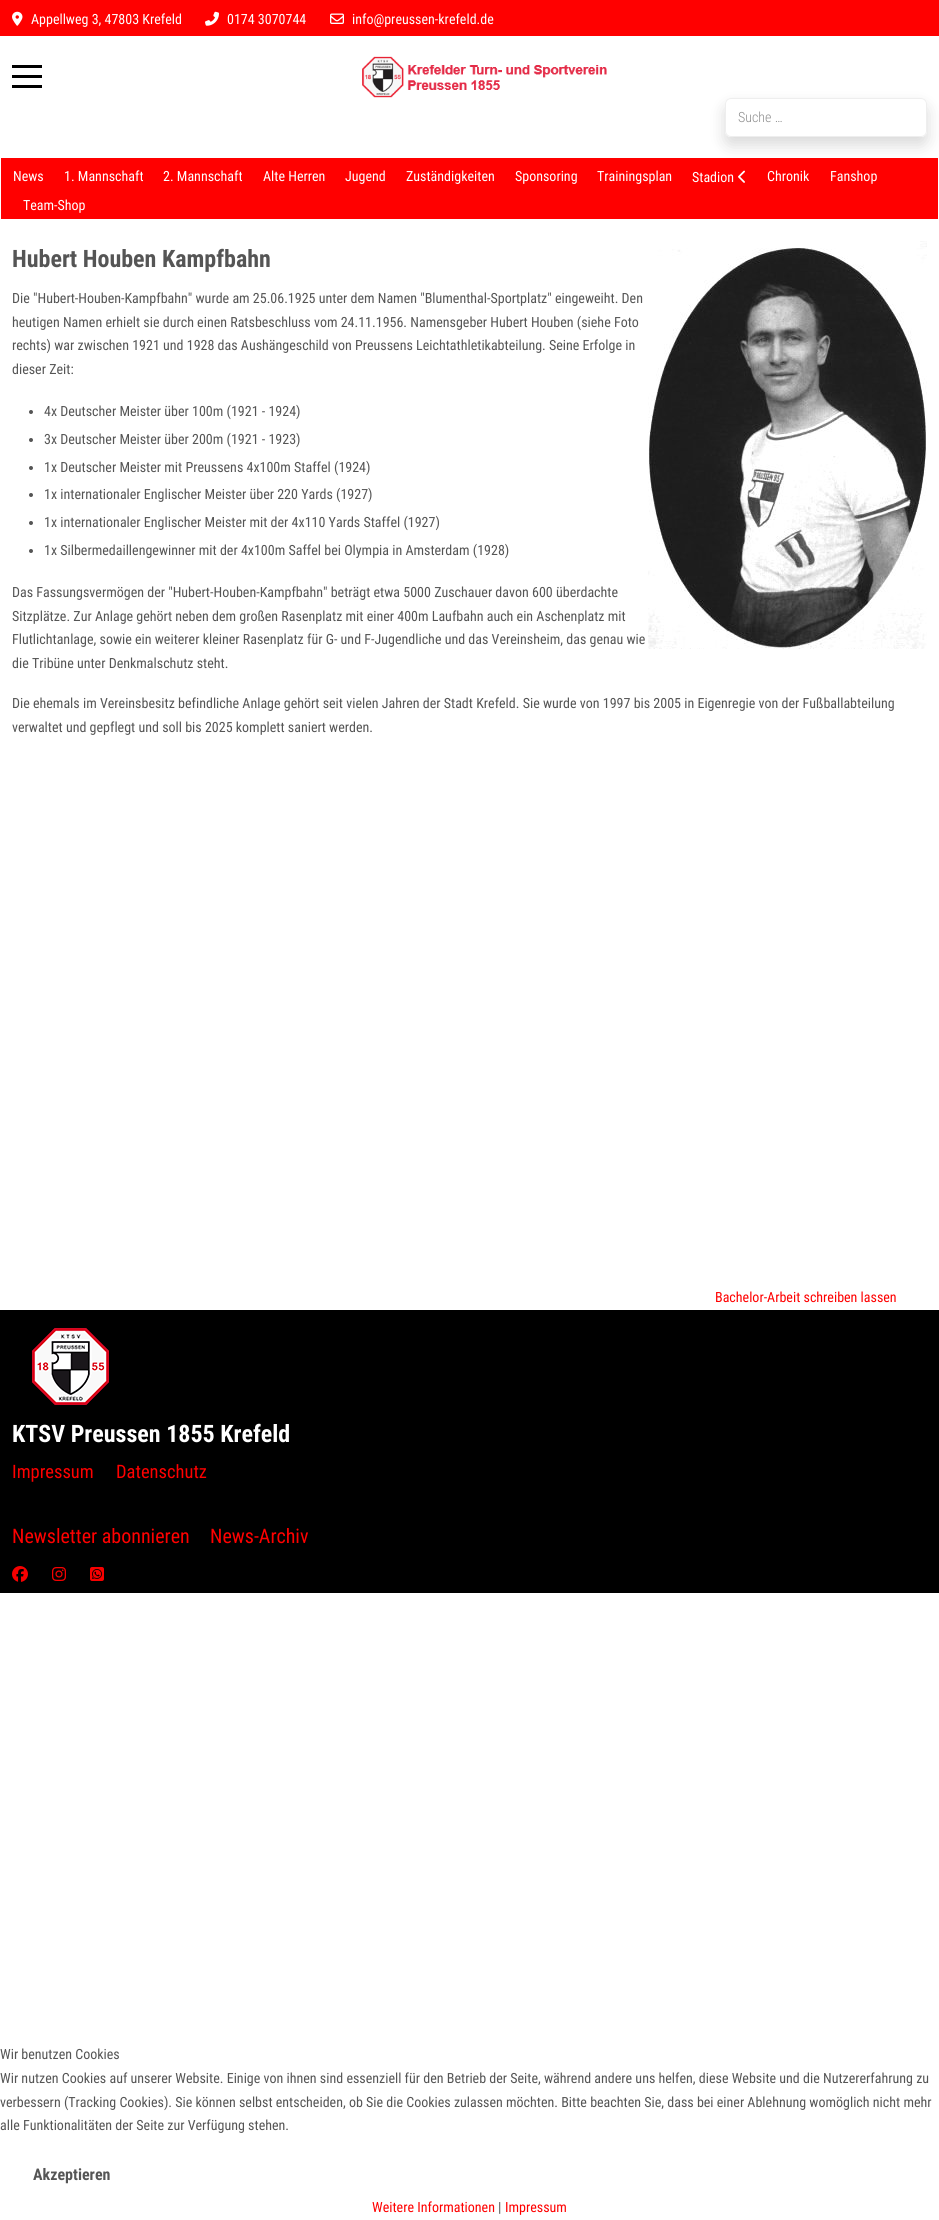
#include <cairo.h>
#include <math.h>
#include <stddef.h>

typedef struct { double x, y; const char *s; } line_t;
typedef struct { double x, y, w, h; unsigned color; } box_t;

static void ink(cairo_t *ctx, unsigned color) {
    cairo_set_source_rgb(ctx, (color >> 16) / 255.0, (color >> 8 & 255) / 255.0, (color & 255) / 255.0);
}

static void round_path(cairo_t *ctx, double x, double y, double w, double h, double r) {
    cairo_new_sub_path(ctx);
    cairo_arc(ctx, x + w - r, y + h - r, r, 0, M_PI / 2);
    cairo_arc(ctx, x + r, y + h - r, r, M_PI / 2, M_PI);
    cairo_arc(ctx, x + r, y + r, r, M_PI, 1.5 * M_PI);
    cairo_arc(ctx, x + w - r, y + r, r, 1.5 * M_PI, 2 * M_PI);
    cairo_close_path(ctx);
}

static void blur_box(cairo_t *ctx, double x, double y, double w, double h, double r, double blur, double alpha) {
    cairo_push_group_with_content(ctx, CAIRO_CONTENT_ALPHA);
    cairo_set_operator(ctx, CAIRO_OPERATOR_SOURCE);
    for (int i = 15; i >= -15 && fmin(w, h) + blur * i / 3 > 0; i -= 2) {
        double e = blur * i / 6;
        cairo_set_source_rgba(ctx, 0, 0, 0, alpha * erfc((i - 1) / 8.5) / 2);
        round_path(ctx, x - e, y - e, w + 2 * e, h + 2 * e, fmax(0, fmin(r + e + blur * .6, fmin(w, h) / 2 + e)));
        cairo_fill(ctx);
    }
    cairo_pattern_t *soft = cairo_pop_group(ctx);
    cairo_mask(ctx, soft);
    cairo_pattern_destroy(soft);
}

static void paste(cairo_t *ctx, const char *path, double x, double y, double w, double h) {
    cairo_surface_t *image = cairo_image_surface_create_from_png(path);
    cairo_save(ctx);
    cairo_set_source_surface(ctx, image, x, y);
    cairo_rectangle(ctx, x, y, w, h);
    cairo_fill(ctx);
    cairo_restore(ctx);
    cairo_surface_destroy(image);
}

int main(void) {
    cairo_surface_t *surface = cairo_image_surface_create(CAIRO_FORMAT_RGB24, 939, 2220);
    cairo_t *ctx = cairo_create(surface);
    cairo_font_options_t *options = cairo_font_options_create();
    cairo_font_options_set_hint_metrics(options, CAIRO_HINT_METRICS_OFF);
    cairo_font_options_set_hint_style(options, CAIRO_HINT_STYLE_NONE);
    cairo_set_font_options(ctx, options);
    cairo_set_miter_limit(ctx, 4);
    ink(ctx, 0xFFFFFF);
    cairo_paint(ctx);
    ink(ctx, 0xFF0000);
    cairo_rectangle(ctx, 0, 0, 939, 36);
    cairo_fill(ctx);
    paste(ctx, "media/1.png", 12, 11, 11, 15);
    cairo_select_font_face(ctx, "Roboto Condensed", CAIRO_FONT_SLANT_NORMAL, CAIRO_FONT_WEIGHT_NORMAL);
    cairo_set_font_size(ctx, 14);
    ink(ctx, 0xFFFFFF);
    cairo_move_to(ctx, 31, 24);
    cairo_show_text(ctx, "Appellweg 3, 47803 Krefeld");
    paste(ctx, "media/2.png", 205, 11, 14, 15);
    cairo_move_to(ctx, 227, 24);
    cairo_show_text(ctx, "0174 3070744");
    paste(ctx, "media/3.png", 330, 13, 14, 11);
    cairo_move_to(ctx, 352, 24);
    cairo_show_text(ctx, "info@preussen-krefeld.de");
    {
        static const box_t items[] = {
            {12, 75, 30, 3, 0x000000},
            {12, 65, 30, 3, 0x000000},
            {12, 85, 30, 3, 0x000000},
        };
        for (size_t i = 0; i < sizeof items / sizeof *items; i++) {
            ink(ctx, items[i].color);
            cairo_rectangle(ctx, items[i].x, items[i].y, items[i].w, items[i].h);
            cairo_fill(ctx);
        }
    }
    paste(ctx, "media/4.png", 362, 56, 245, 42);
    ink(ctx, 0xFF0000);
    cairo_rectangle(ctx, 1, 158, 937, 61);
    cairo_fill(ctx);
    cairo_save(ctx);
    cairo_set_fill_rule(ctx, CAIRO_FILL_RULE_EVEN_ODD);
    cairo_new_path(ctx);
    cairo_move_to(ctx, 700, 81);
    cairo_line_to(ctx, 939, 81);
    cairo_line_to(ctx, 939, 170);
    cairo_line_to(ctx, 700, 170);
    cairo_close_path(ctx);
    cairo_move_to(ctx, 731, 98);
    cairo_line_to(ctx, 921, 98);
    cairo_curve_to(ctx, 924.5, 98, 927, 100.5, 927, 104);
    cairo_line_to(ctx, 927, 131);
    cairo_curve_to(ctx, 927, 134.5, 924.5, 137, 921, 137);
    cairo_line_to(ctx, 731, 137);
    cairo_curve_to(ctx, 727.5, 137, 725, 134.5, 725, 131);
    cairo_line_to(ctx, 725, 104);
    cairo_curve_to(ctx, 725, 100.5, 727.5, 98, 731, 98);
    cairo_close_path(ctx);
    cairo_clip(ctx);
    ink(ctx, 0x000000);
    blur_box(ctx, 725, 106, 202, 39, 6, 8, 0.15);
    cairo_restore(ctx);
    round_path(ctx, 725.5, 98.5, 201, 38, 5.5);
    ink(ctx, 0xEEEEEE);
    cairo_set_line_width(ctx, 1);
    cairo_stroke(ctx);
    cairo_select_font_face(ctx, "Roboto Condensed Light", CAIRO_FONT_SLANT_NORMAL, CAIRO_FONT_WEIGHT_NORMAL);
    ink(ctx, 0x8E8E8E);
    cairo_move_to(ctx, 738, 122);
    cairo_show_text(ctx, "Suche …");
    cairo_select_font_face(ctx, "Roboto Condensed", CAIRO_FONT_SLANT_NORMAL, CAIRO_FONT_WEIGHT_NORMAL);
    ink(ctx, 0xFFFFFF);
    {
        static const line_t items[] = {
            {13, 181, "News"},
            {64, 181, "1. Mannschaft"},
            {163, 181, "2. Mannschaft"},
            {263, 181, "Alte Herren"},
            {345, 181, "Jugend"},
            {406, 181, "Zuständigkeiten"},
            {515, 181, "Sponsoring"},
            {597, 181, "Trainingsplan"},
            {692, 182, "Stadion"},
        };
        for (size_t i = 0; i < sizeof items / sizeof *items; i++) {
            cairo_move_to(ctx, items[i].x, items[i].y);
            cairo_show_text(ctx, items[i].s);
        }
    }
    paste(ctx, "media/5.png", 738, 170, 7, 13);
    {
        static const line_t items[] = {
            {767, 181, "Chronik"},
            {830, 181, "Fanshop"},
            {23, 210, "Team-Shop"},
        };
        for (size_t i = 0; i < sizeof items / sizeof *items; i++) {
            cairo_move_to(ctx, items[i].x, items[i].y);
            cairo_show_text(ctx, items[i].s);
        }
    }
    cairo_select_font_face(ctx, "Roboto Condensed", CAIRO_FONT_SLANT_NORMAL, CAIRO_FONT_WEIGHT_BOLD);
    cairo_set_font_size(ctx, 24);
    ink(ctx, 0x555555);
    cairo_move_to(ctx, 12, 267);
    cairo_show_text(ctx, "Hubert Houben Kampfbahn");
    paste(ctx, "media/6.png", 648, 241, 279, 408);
    cairo_select_font_face(ctx, "Roboto Condensed", CAIRO_FONT_SLANT_NORMAL, CAIRO_FONT_WEIGHT_NORMAL);
    cairo_set_font_size(ctx, 14);
    {
        static const line_t items[] = {
            {12, 303, "Die \"Hubert-Houben-Kampfbahn\" wurde am 25.06.1925 unter dem Namen \"Blumenthal-Sportplatz\" eingeweiht. Den"},
            {12, 327, "heutigen Namen erhielt sie durch einen Ratsbeschluss vom 24.11.1956. Namensgeber Hubert Houben (siehe Foto"},
            {12, 350, "rechts) war zwischen 1921 und 1928 das Aushängeschild von Preussens Leichtathletikabteilung. Seine Erfolge in"},
            {12, 374, "dieser Zeit:"},
        };
        for (size_t i = 0; i < sizeof items / sizeof *items; i++) {
            cairo_move_to(ctx, items[i].x, items[i].y);
            cairo_show_text(ctx, items[i].s);
        }
    }
    cairo_new_path(ctx);
    cairo_arc(ctx, 31, 412, 2, 0, 2 * M_PI);
    cairo_fill(ctx);
    cairo_move_to(ctx, 44, 416);
    cairo_show_text(ctx, "4x Deutscher Meister über 100m (1921 - 1924)");
    cairo_new_path(ctx);
    cairo_arc(ctx, 31, 440, 2, 0, 2 * M_PI);
    cairo_fill(ctx);
    cairo_move_to(ctx, 44, 444);
    cairo_show_text(ctx, "3x Deutscher Meister über 200m (1921 - 1923)");
    cairo_new_path(ctx);
    cairo_arc(ctx, 31, 468, 2, 0, 2 * M_PI);
    cairo_fill(ctx);
    cairo_move_to(ctx, 44, 472);
    cairo_show_text(ctx, "1x Deutscher Meister mit Preussens 4x100m Staffel (1924)");
    cairo_new_path(ctx);
    cairo_arc(ctx, 31, 495, 2, 0, 2 * M_PI);
    cairo_fill(ctx);
    cairo_move_to(ctx, 44, 499);
    cairo_show_text(ctx, "1x internationaler Englischer Meister über 220 Yards (1927)");
    cairo_new_path(ctx);
    cairo_arc(ctx, 31, 523, 2, 0, 2 * M_PI);
    cairo_fill(ctx);
    cairo_move_to(ctx, 44, 527);
    cairo_show_text(ctx, "1x internationaler Englischer Meister mit der 4x110 Yards Staffel (1927)");
    cairo_new_path(ctx);
    cairo_arc(ctx, 31, 551, 2, 0, 2 * M_PI);
    cairo_fill(ctx);
    {
        static const line_t items[] = {
            {44, 555, "1x Silbermedaillengewinner mit der 4x100m Saffel bei Olympia in Amsterdam (1928)"},
            {12, 597, "Das Fassungsvermögen der \"Hubert-Houben-Kampfbahn\" beträgt etwa 5000 Zuschauer davon 600 überdachte"},
            {12, 621, "Sitzplätze. Zur Anlage gehört neben dem großen Rasenplatz mit einer 400m Laufbahn auch ein Aschenplatz mit"},
            {12, 644, "Flutlichtanlage, sowie ein weiterer kleiner Rasenplatz für G- und F-Jugendliche und das Vereinsheim, das genau wie"},
            {12, 668, "die Tribüne unter Denkmalschutz steht."},
            {12, 708, "Die ehemals im Vereinsbesitz befindliche Anlage gehört seit vielen Jahren der Stadt Krefeld. Sie wurde von 1997 bis 2005 in Eigenregie von der Fußballabteilung"},
            {12, 732, "verwaltet und gepflegt und soll bis 2025 komplett saniert werden."},
        };
        for (size_t i = 0; i < sizeof items / sizeof *items; i++) {
            cairo_move_to(ctx, items[i].x, items[i].y);
            cairo_show_text(ctx, items[i].s);
        }
    }
    ink(ctx, 0xFF0000);
    cairo_move_to(ctx, 715, 1302);
    cairo_show_text(ctx, "Bachelor-Arbeit schreiben lassen");
    ink(ctx, 0x000000);
    cairo_rectangle(ctx, 0, 1310, 939, 283);
    cairo_fill(ctx);
    paste(ctx, "media/7.png", 32, 1328, 77, 77);
    cairo_select_font_face(ctx, "Roboto Condensed", CAIRO_FONT_SLANT_NORMAL, CAIRO_FONT_WEIGHT_BOLD);
    cairo_set_font_size(ctx, 24);
    ink(ctx, 0xFFFFFF);
    cairo_move_to(ctx, 12, 1442);
    cairo_show_text(ctx, "KTSV Preussen 1855 Krefeld");
    cairo_select_font_face(ctx, "Roboto Condensed", CAIRO_FONT_SLANT_NORMAL, CAIRO_FONT_WEIGHT_NORMAL);
    cairo_set_font_size(ctx, 18.5);
    ink(ctx, 0xFF0000);
    cairo_move_to(ctx, 12, 1478);
    cairo_show_text(ctx, "Impressum");
    cairo_move_to(ctx, 116, 1478);
    cairo_show_text(ctx, "Datenschutz");
    cairo_set_font_size(ctx, 20);
    cairo_move_to(ctx, 12, 1543);
    cairo_show_text(ctx, "Newsletter abonnieren");
    cairo_move_to(ctx, 210, 1543);
    cairo_show_text(ctx, "News-Archiv");
    paste(ctx, "media/8.png", 12, 1566, 16, 16);
    paste(ctx, "media/9.png", 52, 1567, 14, 14);
    paste(ctx, "media/10.png", 90, 1567, 14, 14);
    cairo_set_font_size(ctx, 14);
    ink(ctx, 0x555555);
    {
        static const line_t items[] = {
            {0, 2059, "Wir benutzen Cookies"},
            {0, 2083, "Wir nutzen Cookies auf unserer Website. Einige von ihnen sind essenziell für den Betrieb der Seite, während andere uns helfen, diese Website und die Nutzererfahrung zu"},
            {0, 2107, "verbessern (Tracking Cookies). Sie können selbst entscheiden, ob Sie die Cookies zulassen möchten. Bitte beachten Sie, dass bei einer Ablehnung womöglich nicht mehr"},
            {0, 2130, "alle Funktionalitäten der Seite zur Verfügung stehen."},
        };
        for (size_t i = 0; i < sizeof items / sizeof *items; i++) {
            cairo_move_to(ctx, items[i].x, items[i].y);
            cairo_show_text(ctx, items[i].s);
        }
    }
    cairo_select_font_face(ctx, "Roboto Condensed", CAIRO_FONT_SLANT_NORMAL, CAIRO_FONT_WEIGHT_BOLD);
    cairo_set_font_size(ctx, 16);
    cairo_move_to(ctx, 33, 2180);
    cairo_show_text(ctx, "Akzeptieren");
    cairo_select_font_face(ctx, "Roboto Condensed", CAIRO_FONT_SLANT_NORMAL, CAIRO_FONT_WEIGHT_NORMAL);
    cairo_set_font_size(ctx, 14);
    ink(ctx, 0xFF0000);
    cairo_move_to(ctx, 372, 2212);
    cairo_show_text(ctx, "Weitere Informationen");
    ink(ctx, 0x555555);
    cairo_move_to(ctx, 498, 2212);
    cairo_show_text(ctx, "|");
    ink(ctx, 0xFF0000);
    cairo_move_to(ctx, 505, 2212);
    cairo_show_text(ctx, "Impressum");
    cairo_surface_write_to_png(surface, "image.png");
    cairo_font_options_destroy(options);
    cairo_destroy(ctx);
    cairo_surface_destroy(surface);
    return 0;
}
